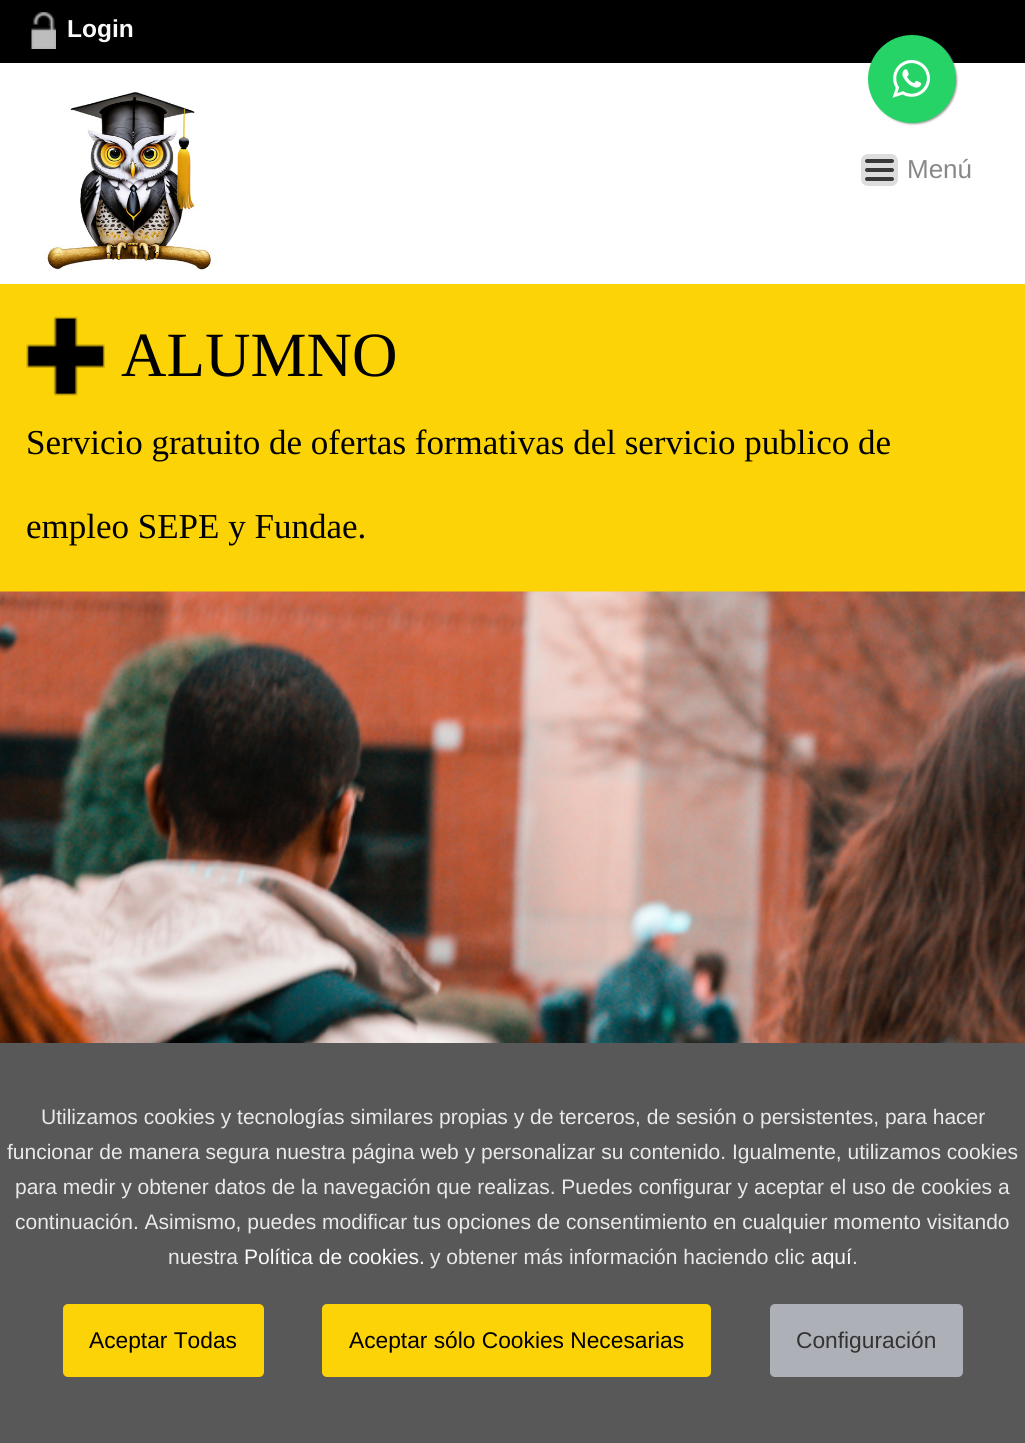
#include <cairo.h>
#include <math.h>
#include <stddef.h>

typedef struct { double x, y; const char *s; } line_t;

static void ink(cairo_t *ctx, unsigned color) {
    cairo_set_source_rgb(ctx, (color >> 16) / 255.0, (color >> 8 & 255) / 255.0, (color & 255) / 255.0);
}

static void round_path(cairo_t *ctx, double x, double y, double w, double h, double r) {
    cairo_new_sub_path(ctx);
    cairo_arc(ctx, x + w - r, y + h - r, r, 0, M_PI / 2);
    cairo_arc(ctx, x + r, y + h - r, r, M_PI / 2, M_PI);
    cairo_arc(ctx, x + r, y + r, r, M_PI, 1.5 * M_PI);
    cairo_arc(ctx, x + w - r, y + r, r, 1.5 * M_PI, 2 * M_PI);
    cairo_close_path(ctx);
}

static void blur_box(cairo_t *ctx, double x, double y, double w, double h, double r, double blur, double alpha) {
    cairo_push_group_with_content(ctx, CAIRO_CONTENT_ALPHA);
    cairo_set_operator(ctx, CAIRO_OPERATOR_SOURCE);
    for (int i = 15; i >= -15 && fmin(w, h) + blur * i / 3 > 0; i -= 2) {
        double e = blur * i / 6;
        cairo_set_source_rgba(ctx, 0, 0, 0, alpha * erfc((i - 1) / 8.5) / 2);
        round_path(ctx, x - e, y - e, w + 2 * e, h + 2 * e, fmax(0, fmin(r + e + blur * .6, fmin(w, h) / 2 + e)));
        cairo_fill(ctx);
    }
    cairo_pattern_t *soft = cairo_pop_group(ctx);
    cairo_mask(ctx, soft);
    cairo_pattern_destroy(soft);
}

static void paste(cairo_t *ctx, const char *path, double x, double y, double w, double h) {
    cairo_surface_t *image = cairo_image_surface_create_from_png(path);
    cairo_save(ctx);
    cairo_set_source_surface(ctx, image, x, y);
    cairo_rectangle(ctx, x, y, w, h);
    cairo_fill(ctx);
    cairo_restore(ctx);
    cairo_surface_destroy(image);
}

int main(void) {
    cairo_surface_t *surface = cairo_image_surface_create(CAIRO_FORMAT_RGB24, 1025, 1443);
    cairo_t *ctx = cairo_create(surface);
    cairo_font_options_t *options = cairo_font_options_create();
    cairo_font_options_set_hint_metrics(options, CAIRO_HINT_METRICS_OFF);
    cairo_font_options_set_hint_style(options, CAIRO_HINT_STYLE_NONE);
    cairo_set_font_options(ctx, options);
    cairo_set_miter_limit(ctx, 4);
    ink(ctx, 0x000000);
    cairo_paint(ctx);
    paste(ctx, "media/1.png", 31, 12, 25, 37);
    cairo_select_font_face(ctx, "Liberation Sans", CAIRO_FONT_SLANT_NORMAL, CAIRO_FONT_WEIGHT_BOLD);
    cairo_set_font_size(ctx, 24.5);
    ink(ctx, 0xFAFAFA);
    cairo_move_to(ctx, 67, 37);
    cairo_show_text(ctx, "Login");
    ink(ctx, 0xFFFFFF);
    cairo_rectangle(ctx, 0, 63, 1025, 221);
    cairo_fill(ctx);
    paste(ctx, "media/2.png", 44, 92, 170, 180);
    ink(ctx, 0xDDDDDD);
    round_path(ctx, 862, 155, 35, 30, 6);
    cairo_fill_preserve(ctx);
    cairo_stroke(ctx);
    ink(ctx, 0x3A3939);
    round_path(ctx, 865, 159, 29, 4, 2);
    cairo_fill(ctx);
    round_path(ctx, 865, 168, 29, 4, 2);
    cairo_fill(ctx);
    round_path(ctx, 865, 177, 29, 4, 2);
    cairo_fill(ctx);
    cairo_select_font_face(ctx, "Liberation Sans", CAIRO_FONT_SLANT_NORMAL, CAIRO_FONT_WEIGHT_NORMAL);
    cairo_set_font_size(ctx, 26);
    ink(ctx, 0x888888);
    cairo_move_to(ctx, 907, 178);
    cairo_show_text(ctx, "Menú");
    ink(ctx, 0xFCD307);
    cairo_rectangle(ctx, 0, 284, 1025, 308);
    cairo_fill(ctx);
    paste(ctx, "media/3.png", 26, 316, 79, 80);
    cairo_select_font_face(ctx, "Liberation Serif", CAIRO_FONT_SLANT_NORMAL, CAIRO_FONT_WEIGHT_NORMAL);
    cairo_set_font_size(ctx, 63);
    ink(ctx, 0x000000);
    cairo_move_to(ctx, 121, 376);
    cairo_show_text(ctx, "ALUMNO");
    cairo_set_font_size(ctx, 35);
    cairo_move_to(ctx, 26, 454);
    cairo_show_text(ctx, "Servicio gratuito de ofertas formativas del servicio publico de");
    cairo_move_to(ctx, 26, 538);
    cairo_show_text(ctx, "empleo SEPE y Fundae.");
    paste(ctx, "media/4.png", 0, 591, 1025, 452);
    ink(ctx, 0x999999);
    blur_box(ctx, 870, 37, 87, 87, 43.5, 1, 1);
    ink(ctx, 0x25D366);
    cairo_arc(ctx, 912, 79, 44, 0, 2 * M_PI);
    cairo_fill(ctx);
    paste(ctx, "media/5.png", 892, 60, 38, 38);
    ink(ctx, 0x585858);
    cairo_rectangle(ctx, 0, 1043, 1025, 400);
    cairo_fill(ctx);
    cairo_select_font_face(ctx, "Liberation Sans", CAIRO_FONT_SLANT_NORMAL, CAIRO_FONT_WEIGHT_NORMAL);
    cairo_set_font_size(ctx, 21);
    ink(ctx, 0xE9E9E9);
    {
        static const line_t items[] = {
            {41, 1124, "Utilizamos cookies y tecnologías similares propias y de terceros, de sesión o persistentes, para hacer"},
            {7, 1159, "funcionar de manera segura nuestra página web y personalizar su contenido. Igualmente, utilizamos cookies"},
            {15, 1194, "para medir y obtener datos de la navegación que realizas. Puedes configurar y aceptar el uso de cookies a"},
            {15, 1229, "continuación. Asimismo, puedes modificar tus opciones de consentimiento en cualquier momento visitando"},
            {168, 1264, "nuestra"},
        };
        for (size_t i = 0; i < sizeof items / sizeof *items; i++) {
            cairo_move_to(ctx, items[i].x, items[i].y);
            cairo_show_text(ctx, items[i].s);
        }
    }
    ink(ctx, 0xFAFAFA);
    cairo_move_to(ctx, 244, 1264);
    cairo_show_text(ctx, "Política de cookies.");
    ink(ctx, 0xE9E9E9);
    cairo_move_to(ctx, 430, 1264);
    cairo_show_text(ctx, "y obtener más información haciendo clic");
    ink(ctx, 0xFAFAFA);
    cairo_move_to(ctx, 811, 1264);
    cairo_show_text(ctx, "aquí");
    ink(ctx, 0xE9E9E9);
    cairo_move_to(ctx, 852, 1264);
    cairo_show_text(ctx, ".");
    ink(ctx, 0xFCD307);
    round_path(ctx, 63, 1304, 201, 73, 5);
    cairo_fill(ctx);
    cairo_set_font_size(ctx, 22.75);
    ink(ctx, 0x000000);
    cairo_move_to(ctx, 89, 1348);
    cairo_show_text(ctx, "Aceptar Todas");
    ink(ctx, 0xFCD307);
    round_path(ctx, 322, 1304, 389, 73, 5);
    cairo_fill(ctx);
    ink(ctx, 0x000000);
    cairo_move_to(ctx, 349, 1348);
    cairo_show_text(ctx, "Aceptar sólo Cookies Necesarias");
    ink(ctx, 0xADB0B6);
    round_path(ctx, 770, 1304, 193, 73, 5);
    cairo_fill(ctx);
    ink(ctx, 0x333333);
    cairo_move_to(ctx, 796, 1348);
    cairo_show_text(ctx, "Configuración");
    cairo_surface_write_to_png(surface, "image.png");
    cairo_font_options_destroy(options);
    cairo_destroy(ctx);
    cairo_surface_destroy(surface);
    return 0;
}
